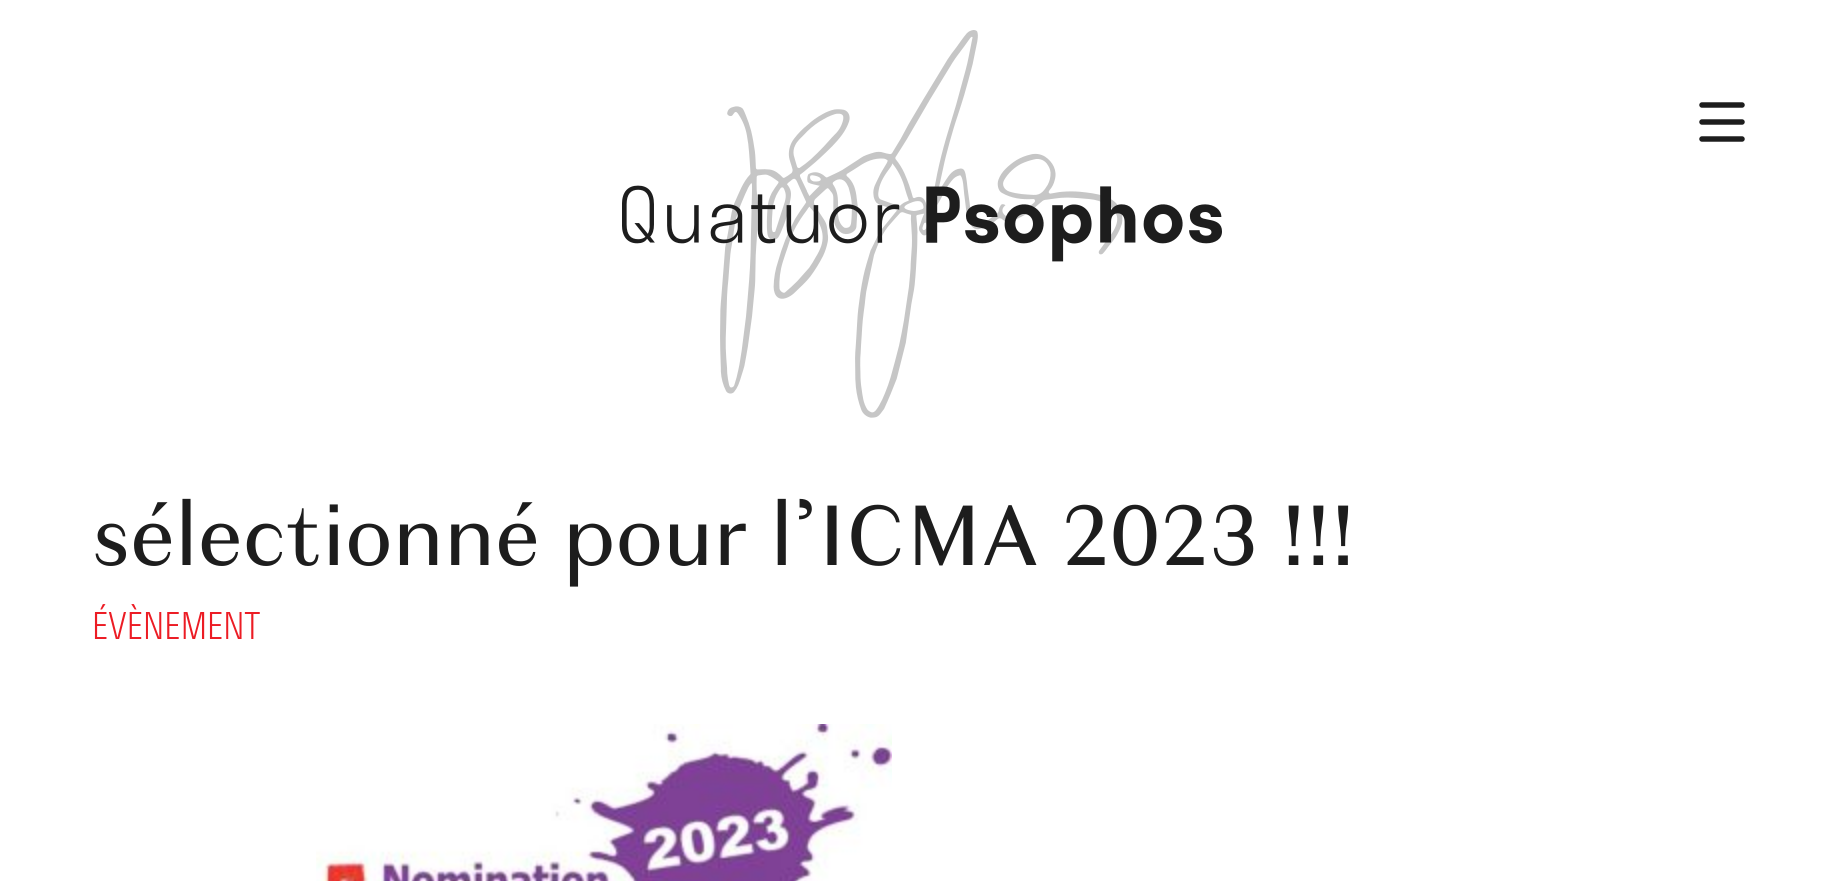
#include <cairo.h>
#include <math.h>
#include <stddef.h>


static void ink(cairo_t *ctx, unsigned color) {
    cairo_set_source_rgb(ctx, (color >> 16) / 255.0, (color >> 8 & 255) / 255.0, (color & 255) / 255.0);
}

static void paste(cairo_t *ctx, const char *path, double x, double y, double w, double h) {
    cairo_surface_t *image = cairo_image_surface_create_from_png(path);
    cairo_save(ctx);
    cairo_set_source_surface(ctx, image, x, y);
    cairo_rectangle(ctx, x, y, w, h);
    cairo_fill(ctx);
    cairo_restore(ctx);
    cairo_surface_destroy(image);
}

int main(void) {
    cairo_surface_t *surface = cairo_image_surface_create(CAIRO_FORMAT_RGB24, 1844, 881);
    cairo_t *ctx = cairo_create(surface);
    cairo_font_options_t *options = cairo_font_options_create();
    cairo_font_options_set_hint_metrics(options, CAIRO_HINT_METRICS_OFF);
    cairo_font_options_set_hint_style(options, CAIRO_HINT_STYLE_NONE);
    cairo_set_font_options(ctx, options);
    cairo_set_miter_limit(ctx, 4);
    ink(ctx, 0xFFFFFF);
    cairo_paint(ctx);
    paste(ctx, "media/1.png", 622, 30, 600, 388);
    cairo_new_path(ctx);
    cairo_move_to(ctx, 1702, 105);
    cairo_line_to(ctx, 1742, 105);
    cairo_move_to(ctx, 1702, 122);
    cairo_line_to(ctx, 1742, 122);
    cairo_move_to(ctx, 1702, 139);
    cairo_line_to(ctx, 1742, 139);
    ink(ctx, 0x1D1D1D);
    cairo_set_line_width(ctx, 5.5);
    cairo_set_line_cap(ctx, CAIRO_LINE_CAP_ROUND);
    cairo_stroke(ctx);
    cairo_select_font_face(ctx, "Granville", CAIRO_FONT_SLANT_NORMAL, CAIRO_FONT_WEIGHT_NORMAL);
    cairo_set_font_size(ctx, 90);
    cairo_move_to(ctx, 92, 565);
    cairo_show_text(ctx, "sélectionné pour l’ICMA 2023 !!!");
    cairo_select_font_face(ctx, "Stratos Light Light", CAIRO_FONT_SLANT_NORMAL, CAIRO_FONT_WEIGHT_NORMAL);
    cairo_set_font_size(ctx, 36);
    ink(ctx, 0xEC1C24);
    cairo_move_to(ctx, 92, 639);
    cairo_show_text(ctx, "ÉVÈNEMENT");
    paste(ctx, "media/2.png", 316, 724, 576, 157);
    cairo_surface_write_to_png(surface, "image.png");
    cairo_font_options_destroy(options);
    cairo_destroy(ctx);
    cairo_surface_destroy(surface);
    return 0;
}
